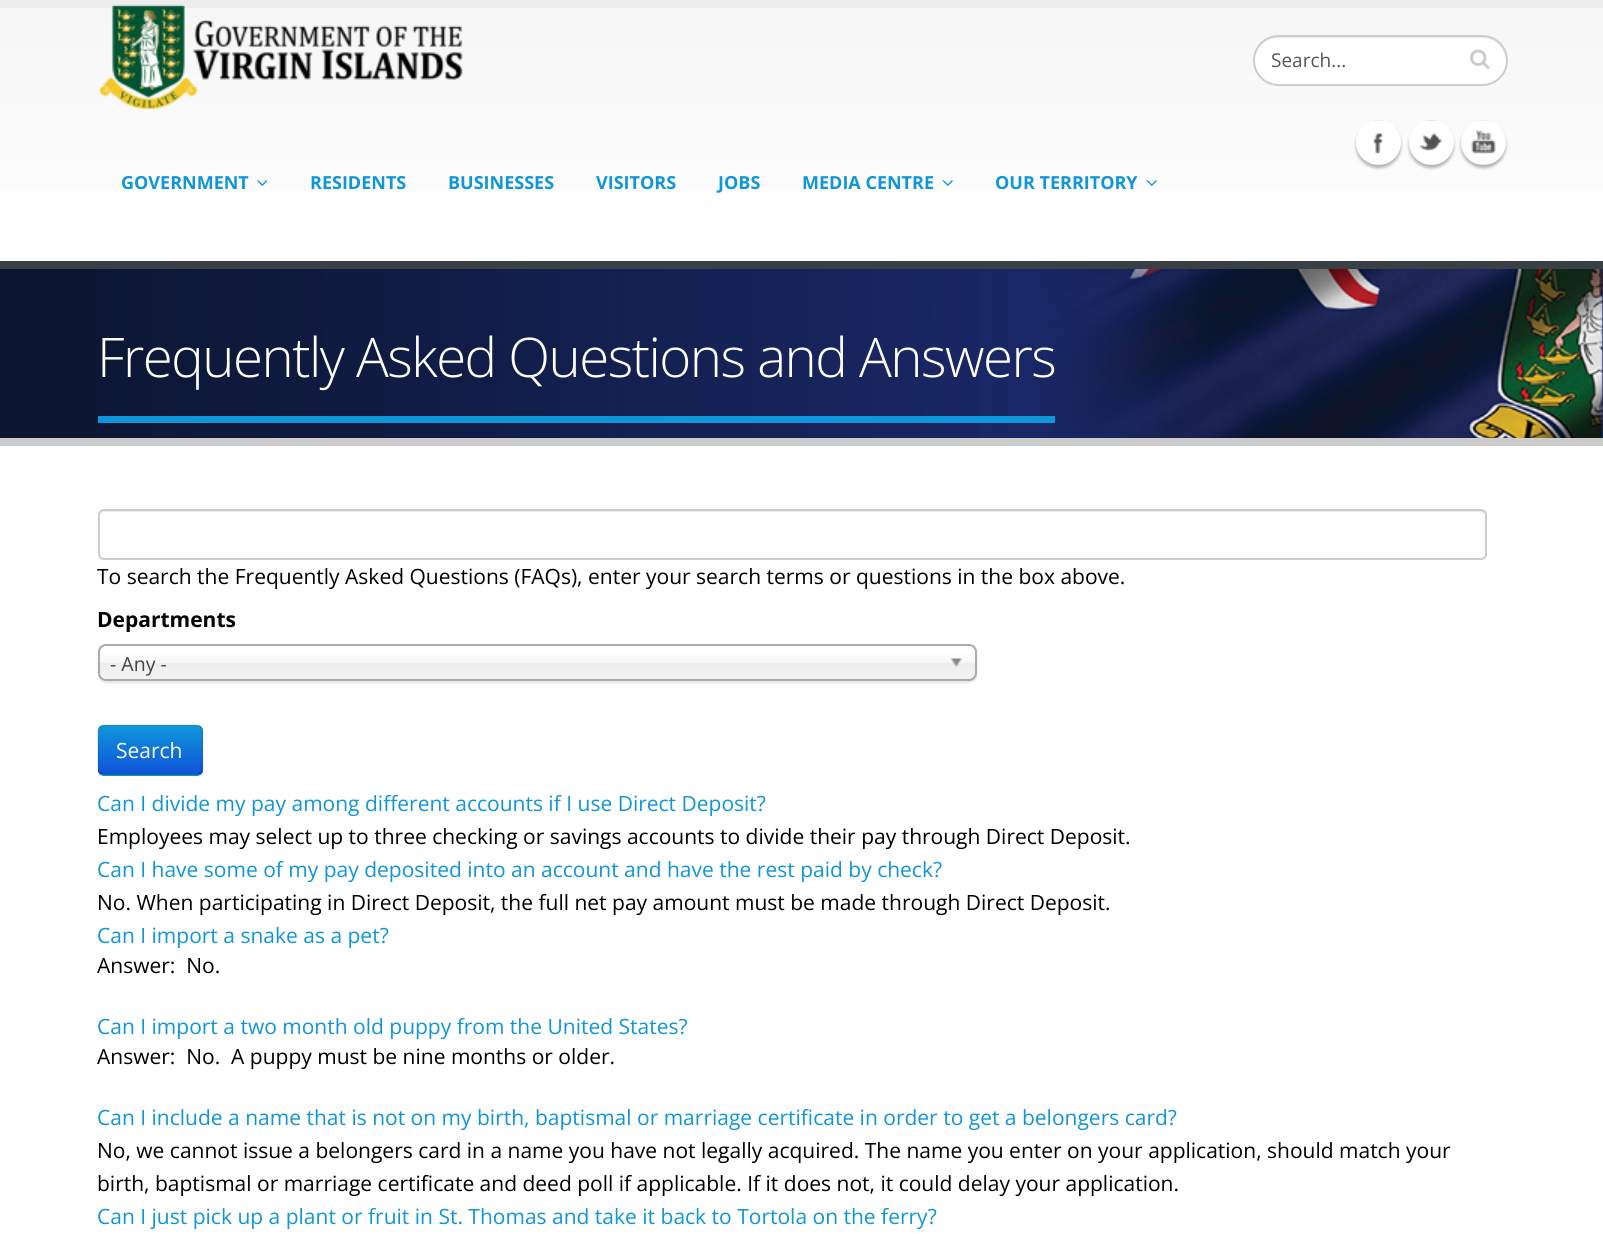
#include <cairo.h>
#include <math.h>
#include <stddef.h>

typedef struct { double x, y; const char *s; } line_t;
typedef struct { double x, y, w, h; unsigned color; } box_t;

static void ink(cairo_t *ctx, unsigned color) {
    cairo_set_source_rgb(ctx, (color >> 16) / 255.0, (color >> 8 & 255) / 255.0, (color & 255) / 255.0);
}

static void write_spaced(cairo_t *ctx, double x, double y, const char *s, double letter, double word) {
    cairo_move_to(ctx, x, y);
    while (*s) {
        char ch[5] = {0};
        int n = 0;
        do ch[n++] = *s++; while ((*s & 0xC0) == 0x80);
        cairo_show_text(ctx, ch);
        cairo_rel_move_to(ctx, letter + word * (*ch == ' '), 0);
    }
}

static void round_path(cairo_t *ctx, double x, double y, double w, double h, double r) {
    cairo_new_sub_path(ctx);
    cairo_arc(ctx, x + w - r, y + h - r, r, 0, M_PI / 2);
    cairo_arc(ctx, x + r, y + h - r, r, M_PI / 2, M_PI);
    cairo_arc(ctx, x + r, y + r, r, M_PI, 1.5 * M_PI);
    cairo_arc(ctx, x + w - r, y + r, r, 1.5 * M_PI, 2 * M_PI);
    cairo_close_path(ctx);
}

static void blur_box(cairo_t *ctx, double x, double y, double w, double h, double r, double blur, double alpha) {
    cairo_push_group_with_content(ctx, CAIRO_CONTENT_ALPHA);
    cairo_set_operator(ctx, CAIRO_OPERATOR_SOURCE);
    for (int i = 15; i >= -15 && fmin(w, h) + blur * i / 3 > 0; i -= 2) {
        double e = blur * i / 6;
        cairo_set_source_rgba(ctx, 0, 0, 0, alpha * erfc((i - 1) / 8.5) / 2);
        round_path(ctx, x - e, y - e, w + 2 * e, h + 2 * e, fmax(0, fmin(r + e + blur * .6, fmin(w, h) / 2 + e)));
        cairo_fill(ctx);
    }
    cairo_pattern_t *soft = cairo_pop_group(ctx);
    cairo_mask(ctx, soft);
    cairo_pattern_destroy(soft);
}

static void paste(cairo_t *ctx, const char *path, double x, double y, double w, double h) {
    cairo_surface_t *image = cairo_image_surface_create_from_png(path);
    cairo_save(ctx);
    cairo_set_source_surface(ctx, image, x, y);
    cairo_rectangle(ctx, x, y, w, h);
    cairo_fill(ctx);
    cairo_restore(ctx);
    cairo_surface_destroy(image);
}

int main(void) {
    cairo_surface_t *surface = cairo_image_surface_create(CAIRO_FORMAT_RGB24, 1603, 1234);
    cairo_t *ctx = cairo_create(surface);
    cairo_font_options_t *options = cairo_font_options_create();
    cairo_font_options_set_hint_metrics(options, CAIRO_HINT_METRICS_OFF);
    cairo_font_options_set_hint_style(options, CAIRO_HINT_STYLE_NONE);
    cairo_set_font_options(ctx, options);
    cairo_set_miter_limit(ctx, 4);
    cairo_pattern_t *gradient;
    ink(ctx, 0xFFFFFF);
    cairo_paint(ctx);
    gradient = cairo_pattern_create_linear(802, 7.5, 802, 261);
    cairo_pattern_add_color_stop_rgba(gradient, 0, 0.965, 0.965, 0.965, 1);
    cairo_pattern_add_color_stop_rgba(gradient, 1, 1, 1, 1, 1);
    cairo_set_source(ctx, gradient);
    cairo_pattern_destroy(gradient);
    cairo_rectangle(ctx, 0, 8, 1603, 183);
    cairo_fill(ctx);
    ink(ctx, 0xEDEDED);
    cairo_rectangle(ctx, 0, 0, 1603, 8);
    cairo_fill(ctx);
    paste(ctx, "media/1.png", 98, 4, 365, 106);
    ink(ctx, 0xFFFFFF);
    round_path(ctx, 1253, 35, 255, 51, 25.5);
    cairo_fill(ctx);
    ink(ctx, 0xECECEC);
    cairo_new_path(ctx);
    cairo_move_to(ctx, 1278, 38);
    cairo_line_to(ctx, 1482, 38);
    cairo_curve_to(ctx, 1495, 38, 1505, 48, 1506, 61);
    cairo_line_to(ctx, 1506, 60);
    cairo_curve_to(ctx, 1506, 47, 1495, 36, 1482, 36);
    cairo_line_to(ctx, 1278, 36);
    cairo_curve_to(ctx, 1265, 36, 1254, 47, 1254, 60);
    cairo_line_to(ctx, 1254, 61);
    cairo_curve_to(ctx, 1255, 48, 1265, 38, 1278, 38);
    cairo_close_path(ctx);
    cairo_fill(ctx);
    round_path(ctx, 1254, 36, 253, 49, 24.5);
    ink(ctx, 0xCCCCCC);
    cairo_stroke(ctx);
    cairo_select_font_face(ctx, "Open Sans", CAIRO_FONT_SLANT_NORMAL, CAIRO_FONT_WEIGHT_NORMAL);
    cairo_set_font_size(ctx, 19);
    ink(ctx, 0x555555);
    cairo_move_to(ctx, 1271, 67);
    cairo_show_text(ctx, "Search...");
    paste(ctx, "media/2.png", 1470, 49, 20, 20);
    ink(ctx, 0x000000);
    blur_box(ctx, 1356, 123, 45, 45, 22.5, 1.5, 0.3);
    ink(ctx, 0xFFFFFF);
    cairo_arc(ctx, 1378.5, 142.5, 22.5, 0, 2 * M_PI);
    cairo_fill(ctx);
    paste(ctx, "media/3.png", 1373, 120, 11, 45);
    ink(ctx, 0x000000);
    blur_box(ctx, 1409, 123, 45, 45, 22.5, 1.5, 0.3);
    ink(ctx, 0xFFFFFF);
    cairo_arc(ctx, 1431.5, 142.5, 22.5, 0, 2 * M_PI);
    cairo_fill(ctx);
    paste(ctx, "media/4.png", 1419, 120, 23, 45);
    ink(ctx, 0x000000);
    blur_box(ctx, 1461, 123, 45, 45, 22.5, 1.5, 0.3);
    ink(ctx, 0xFFFFFF);
    cairo_arc(ctx, 1483.5, 142.5, 22.5, 0, 2 * M_PI);
    cairo_fill(ctx);
    paste(ctx, "media/5.png", 1471, 120, 25, 45);
    cairo_select_font_face(ctx, "Open Sans", CAIRO_FONT_SLANT_NORMAL, CAIRO_FONT_WEIGHT_BOLD);
    cairo_set_font_size(ctx, 18);
    ink(ctx, 0x0F96D9);
    cairo_move_to(ctx, 121, 189);
    cairo_show_text(ctx, "GOVERNMENT");
    paste(ctx, "media/6.png", 257, 180, 11, 6);
    {
        static const line_t items[] = {
            {310, 189, "RESIDENTS"},
            {448, 189, "BUSINESSES"},
            {596, 189, "VISITORS"},
            {718, 189, "JOBS"},
            {802, 189, "MEDIA CENTRE"},
        };
        for (size_t i = 0; i < sizeof items / sizeof *items; i++) {
            cairo_move_to(ctx, items[i].x, items[i].y);
            cairo_show_text(ctx, items[i].s);
        }
    }
    paste(ctx, "media/7.png", 942, 180, 11, 6);
    cairo_move_to(ctx, 995, 189);
    cairo_show_text(ctx, "OUR TERRITORY");
    paste(ctx, "media/7.png", 1146, 180, 11, 6);
    ink(ctx, 0x0B1631);
    cairo_rectangle(ctx, 0, 269, 97, 169);
    cairo_fill(ctx);
    paste(ctx, "media/8.png", 97, 269, 1506, 169);
    {
        static const box_t items[] = {
            {0, 261, 1603, 8, 0x384045},
            {0, 438, 1603, 8, 0xCCCCCC},
            {98, 416, 957, 7, 0x0F96D9},
        };
        for (size_t i = 0; i < sizeof items / sizeof *items; i++) {
            ink(ctx, items[i].color);
            cairo_rectangle(ctx, items[i].x, items[i].y, items[i].w, items[i].h);
            cairo_fill(ctx);
        }
    }
    cairo_select_font_face(ctx, "Open Sans Light", CAIRO_FONT_SLANT_NORMAL, CAIRO_FONT_WEIGHT_NORMAL);
    cairo_set_font_size(ctx, 54.6);
    ink(ctx, 0xFFFFFF);
    write_spaced(ctx, 97, 377, "Frequently Asked Questions and Answers", -1.5, 0);
    ink(ctx, 0xECECEC);
    cairo_new_path(ctx);
    cairo_move_to(ctx, 104, 512);
    cairo_line_to(ctx, 1480, 512);
    cairo_curve_to(ctx, 1483, 512, 1485, 514, 1485, 516);
    cairo_curve_to(ctx, 1485, 513, 1483, 510, 1480, 510);
    cairo_line_to(ctx, 104, 510);
    cairo_curve_to(ctx, 101, 510, 99, 513, 99, 516);
    cairo_curve_to(ctx, 99, 514, 101, 512, 104, 512);
    cairo_close_path(ctx);
    cairo_fill(ctx);
    round_path(ctx, 99, 510, 1387, 49, 5);
    ink(ctx, 0xCCCCCC);
    cairo_stroke(ctx);
    cairo_select_font_face(ctx, "Open Sans", CAIRO_FONT_SLANT_NORMAL, CAIRO_FONT_WEIGHT_NORMAL);
    cairo_set_font_size(ctx, 21);
    ink(ctx, 0x000000);
    cairo_move_to(ctx, 97, 584);
    cairo_show_text(ctx, "To search the Frequently Asked Questions (FAQs), enter your search terms or questions in the box above.");
    cairo_select_font_face(ctx, "Open Sans", CAIRO_FONT_SLANT_NORMAL, CAIRO_FONT_WEIGHT_BOLD);
    cairo_move_to(ctx, 97, 627);
    cairo_show_text(ctx, "Departments");
    ink(ctx, 0x000000);
    blur_box(ctx, 98, 645, 879, 38, 8, 1, 0.1);
    gradient = cairo_pattern_create_linear(537, 645, 537, 680);
    cairo_pattern_add_color_stop_rgba(gradient, 0.2, 1, 1, 1, 1);
    cairo_pattern_add_color_stop_rgba(gradient, 0.5, 0.965, 0.965, 0.965, 1);
    cairo_pattern_add_color_stop_rgba(gradient, 0.52, 0.933, 0.933, 0.933, 1);
    cairo_pattern_add_color_stop_rgba(gradient, 1, 0.957, 0.957, 0.957, 1);
    cairo_set_source(ctx, gradient);
    cairo_pattern_destroy(gradient);
    round_path(ctx, 99, 645, 876, 35, 6);
    cairo_fill(ctx);
    round_path(ctx, 99, 645, 877, 35, 7);
    ink(ctx, 0xAAAAAA);
    cairo_stroke(ctx);
    cairo_select_font_face(ctx, "Open Sans", CAIRO_FONT_SLANT_NORMAL, CAIRO_FONT_WEIGHT_NORMAL);
    cairo_set_font_size(ctx, 19.5);
    ink(ctx, 0x444444);
    cairo_move_to(ctx, 110, 671);
    cairo_show_text(ctx, "- Any -");
    paste(ctx, "media/9.png", 950, 658, 12, 9);
    ink(ctx, 0x0F96D9);
    round_path(ctx, 98, 725, 105, 51, 6);
    cairo_fill(ctx);
    cairo_save(ctx);
    round_path(ctx, 98, 725, 105, 51, 6);
    cairo_clip(ctx);
    gradient = cairo_pattern_create_linear(150, 726, 150, 774);
    cairo_pattern_add_color_stop_rgba(gradient, 0, 0.059, 0.588, 0.851, 1);
    cairo_pattern_add_color_stop_rgba(gradient, 1, 0.059, 0.325, 0.851, 1);
    cairo_set_source(ctx, gradient);
    cairo_pattern_destroy(gradient);
    cairo_rectangle(ctx, 98, 726, 105, 48);
    cairo_fill(ctx);
    cairo_restore(ctx);
    cairo_new_path(ctx);
    cairo_move_to(ctx, 200, 773);
    cairo_line_to(ctx, 197, 774.5);
    cairo_line_to(ctx, 103, 774.5);
    cairo_line_to(ctx, 100, 773);
    cairo_set_source_rgba(ctx, 0, 0, 0, 0.25);
    cairo_set_line_width(ctx, 1.5);
    cairo_stroke(ctx);
    cairo_new_path(ctx);
    cairo_move_to(ctx, 100, 773);
    cairo_curve_to(ctx, 97.5, 770.5, 98, 766, 98, 763);
    cairo_line_to(ctx, 98, 750);
    cairo_curve_to(ctx, 98, 723.5, 93, 725, 119, 725);
    cairo_line_to(ctx, 181, 725);
    cairo_curve_to(ctx, 207, 725, 202, 723.5, 202, 750);
    cairo_line_to(ctx, 202, 763);
    cairo_curve_to(ctx, 202, 766, 202.5, 770.5, 200, 773);
    cairo_set_source_rgba(ctx, 0, 0, 0, 0.1);
    cairo_stroke(ctx);
    cairo_set_font_size(ctx, 21);
    ink(ctx, 0xFFFFFF);
    cairo_move_to(ctx, 116, 758);
    cairo_show_text(ctx, "Search");
    ink(ctx, 0x0F96D9);
    cairo_move_to(ctx, 97, 811);
    cairo_show_text(ctx, "Can I divide my pay among different accounts if I use Direct Deposit?");
    ink(ctx, 0x000000);
    cairo_move_to(ctx, 97, 844);
    cairo_show_text(ctx, "Employees may select up to three checking or savings accounts to divide their pay through Direct Deposit.");
    ink(ctx, 0x0F96D9);
    cairo_move_to(ctx, 97, 877);
    cairo_show_text(ctx, "Can I have some of my pay deposited into an account and have the rest paid by check?");
    ink(ctx, 0x000000);
    cairo_move_to(ctx, 97, 910);
    cairo_show_text(ctx, "No. When participating in Direct Deposit, the full net pay amount must be made through Direct Deposit.");
    ink(ctx, 0x0F96D9);
    cairo_move_to(ctx, 97, 943);
    cairo_show_text(ctx, "Can I import a snake as a pet?");
    ink(ctx, 0x000000);
    cairo_move_to(ctx, 97, 973);
    cairo_show_text(ctx, "Answer:  No.");
    ink(ctx, 0x0F96D9);
    cairo_move_to(ctx, 97, 1034);
    cairo_show_text(ctx, "Can I import a two month old puppy from the United States?");
    ink(ctx, 0x000000);
    cairo_move_to(ctx, 97, 1064);
    cairo_show_text(ctx, "Answer:  No.  A puppy must be nine months or older.");
    ink(ctx, 0x0F96D9);
    cairo_move_to(ctx, 97, 1125);
    cairo_show_text(ctx, "Can I include a name that is not on my birth, baptismal or marriage certificate in order to get a belongers card?");
    ink(ctx, 0x000000);
    cairo_move_to(ctx, 97, 1158);
    cairo_show_text(ctx, "No, we cannot issue a belongers card in a name you have not legally acquired. The name you enter on your application, should match your");
    cairo_move_to(ctx, 97, 1191);
    cairo_show_text(ctx, "birth, baptismal or marriage certificate and deed poll if applicable. If it does not, it could delay your application.");
    ink(ctx, 0x0F96D9);
    cairo_move_to(ctx, 97, 1224);
    cairo_show_text(ctx, "Can I just pick up a plant or fruit in St. Thomas and take it back to Tortola on the ferry?");
    cairo_surface_write_to_png(surface, "image.png");
    cairo_font_options_destroy(options);
    cairo_destroy(ctx);
    cairo_surface_destroy(surface);
    return 0;
}
